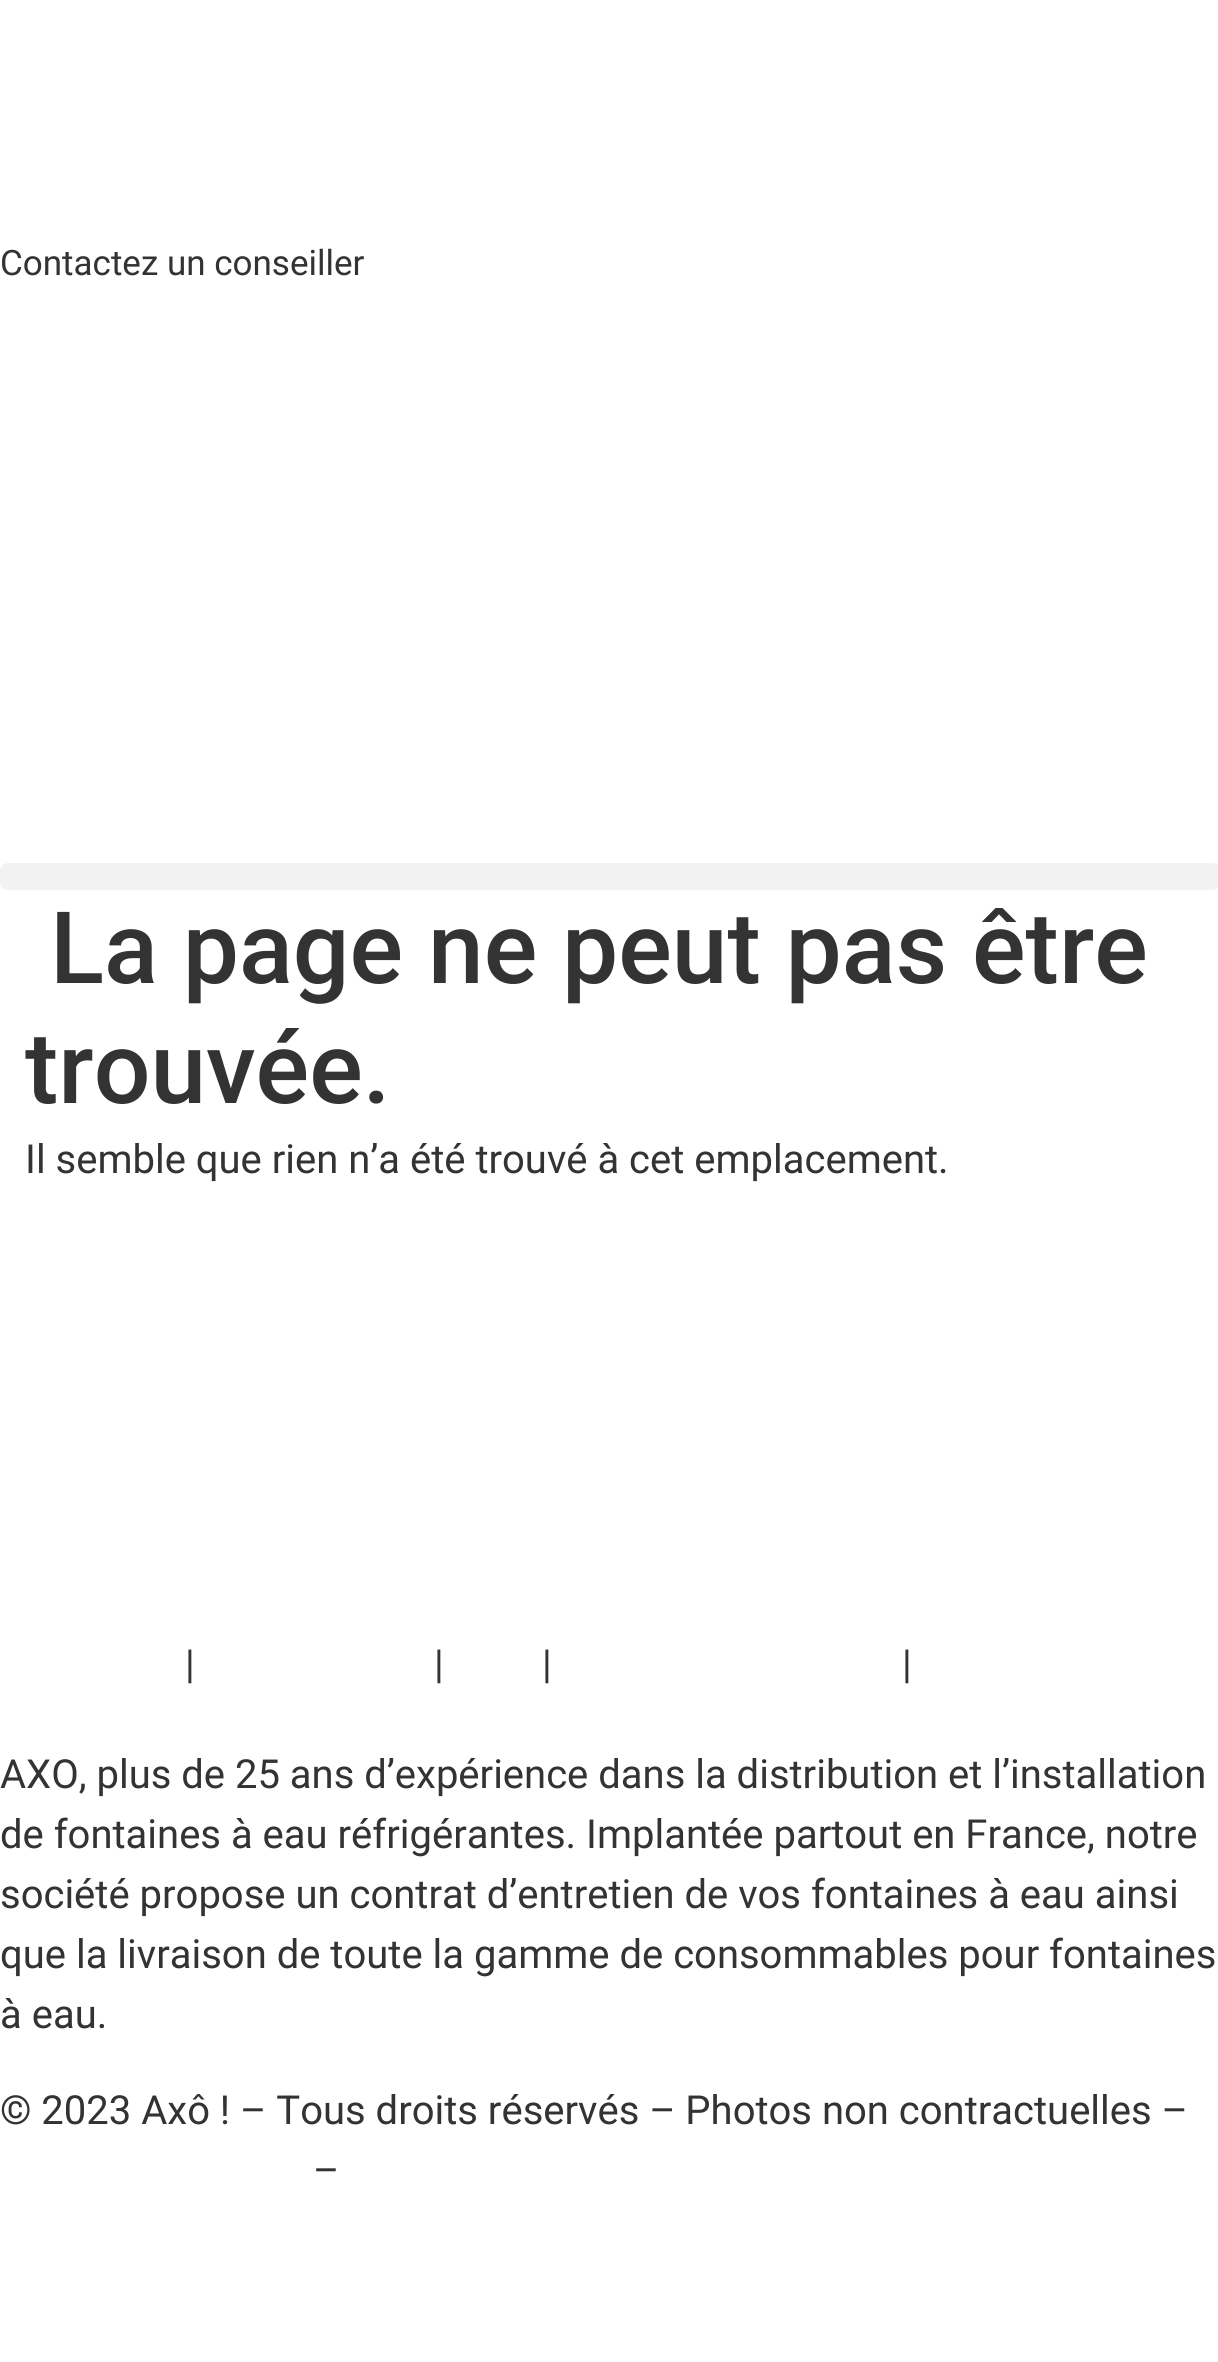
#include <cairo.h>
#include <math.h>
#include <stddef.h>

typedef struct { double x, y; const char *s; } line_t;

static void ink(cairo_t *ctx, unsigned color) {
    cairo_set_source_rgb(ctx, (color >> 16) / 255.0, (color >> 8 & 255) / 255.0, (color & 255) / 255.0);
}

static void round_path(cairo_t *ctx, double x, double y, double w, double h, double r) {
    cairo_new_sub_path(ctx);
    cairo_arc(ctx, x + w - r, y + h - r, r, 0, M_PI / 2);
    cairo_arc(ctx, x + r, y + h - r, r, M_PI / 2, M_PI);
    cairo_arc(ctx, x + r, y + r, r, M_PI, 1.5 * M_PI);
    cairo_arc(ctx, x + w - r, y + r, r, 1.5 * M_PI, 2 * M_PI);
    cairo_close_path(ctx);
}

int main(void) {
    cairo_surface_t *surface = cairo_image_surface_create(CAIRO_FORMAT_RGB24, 1218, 2362);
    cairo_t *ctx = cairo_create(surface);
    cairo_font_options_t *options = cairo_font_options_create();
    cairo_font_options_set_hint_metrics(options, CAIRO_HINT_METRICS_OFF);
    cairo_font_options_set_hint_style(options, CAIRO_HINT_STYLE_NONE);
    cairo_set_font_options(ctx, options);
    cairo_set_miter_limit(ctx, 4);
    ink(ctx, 0xFFFFFF);
    cairo_paint(ctx);
    cairo_select_font_face(ctx, "Roboto", CAIRO_FONT_SLANT_NORMAL, CAIRO_FONT_WEIGHT_NORMAL);
    cairo_set_font_size(ctx, 35);
    ink(ctx, 0x333333);
    cairo_move_to(ctx, 0, 275);
    cairo_show_text(ctx, "Contactez un conseiller");
    ink(ctx, 0xF2F2F2);
    round_path(ctx, 0, 863, 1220, 27, 8);
    cairo_fill(ctx);
    cairo_select_font_face(ctx, "Roboto Medium", CAIRO_FONT_SLANT_NORMAL, CAIRO_FONT_WEIGHT_NORMAL);
    cairo_set_font_size(ctx, 100);
    ink(ctx, 0x333333);
    cairo_move_to(ctx, 50, 983);
    cairo_show_text(ctx, "La page ne peut pas être");
    cairo_move_to(ctx, 25, 1103);
    cairo_show_text(ctx, "trouvée.");
    cairo_select_font_face(ctx, "Roboto", CAIRO_FONT_SLANT_NORMAL, CAIRO_FONT_WEIGHT_NORMAL);
    cairo_set_font_size(ctx, 40);
    {
        static const line_t items[] = {
            {25, 1173, "Il semble que rien n’a été trouvé à cet emplacement."},
            {185, 1678, "|"},
            {434, 1678, "|"},
            {542, 1678, "|"},
            {902, 1678, "|"},
            {0, 1788, "AXO, plus de 25 ans d’expérience dans la distribution et l’installation"},
            {0, 1848, "de fontaines à eau réfrigérantes. Implantée partout en France, notre"},
            {0, 1908, "société propose un contrat d’entretien de vos fontaines à eau ainsi"},
            {0, 1968, "que la livraison de toute la gamme de consommables pour fontaines"},
            {0, 2028, "à eau."},
            {0, 2124, "© 2023 Axô ! – Tous droits réservés – Photos non contractuelles –"},
            {313, 2184, "–"},
        };
        for (size_t i = 0; i < sizeof items / sizeof *items; i++) {
            cairo_move_to(ctx, items[i].x, items[i].y);
            cairo_show_text(ctx, items[i].s);
        }
    }
    cairo_surface_write_to_png(surface, "image.png");
    cairo_font_options_destroy(options);
    cairo_destroy(ctx);
    cairo_surface_destroy(surface);
    return 0;
}
